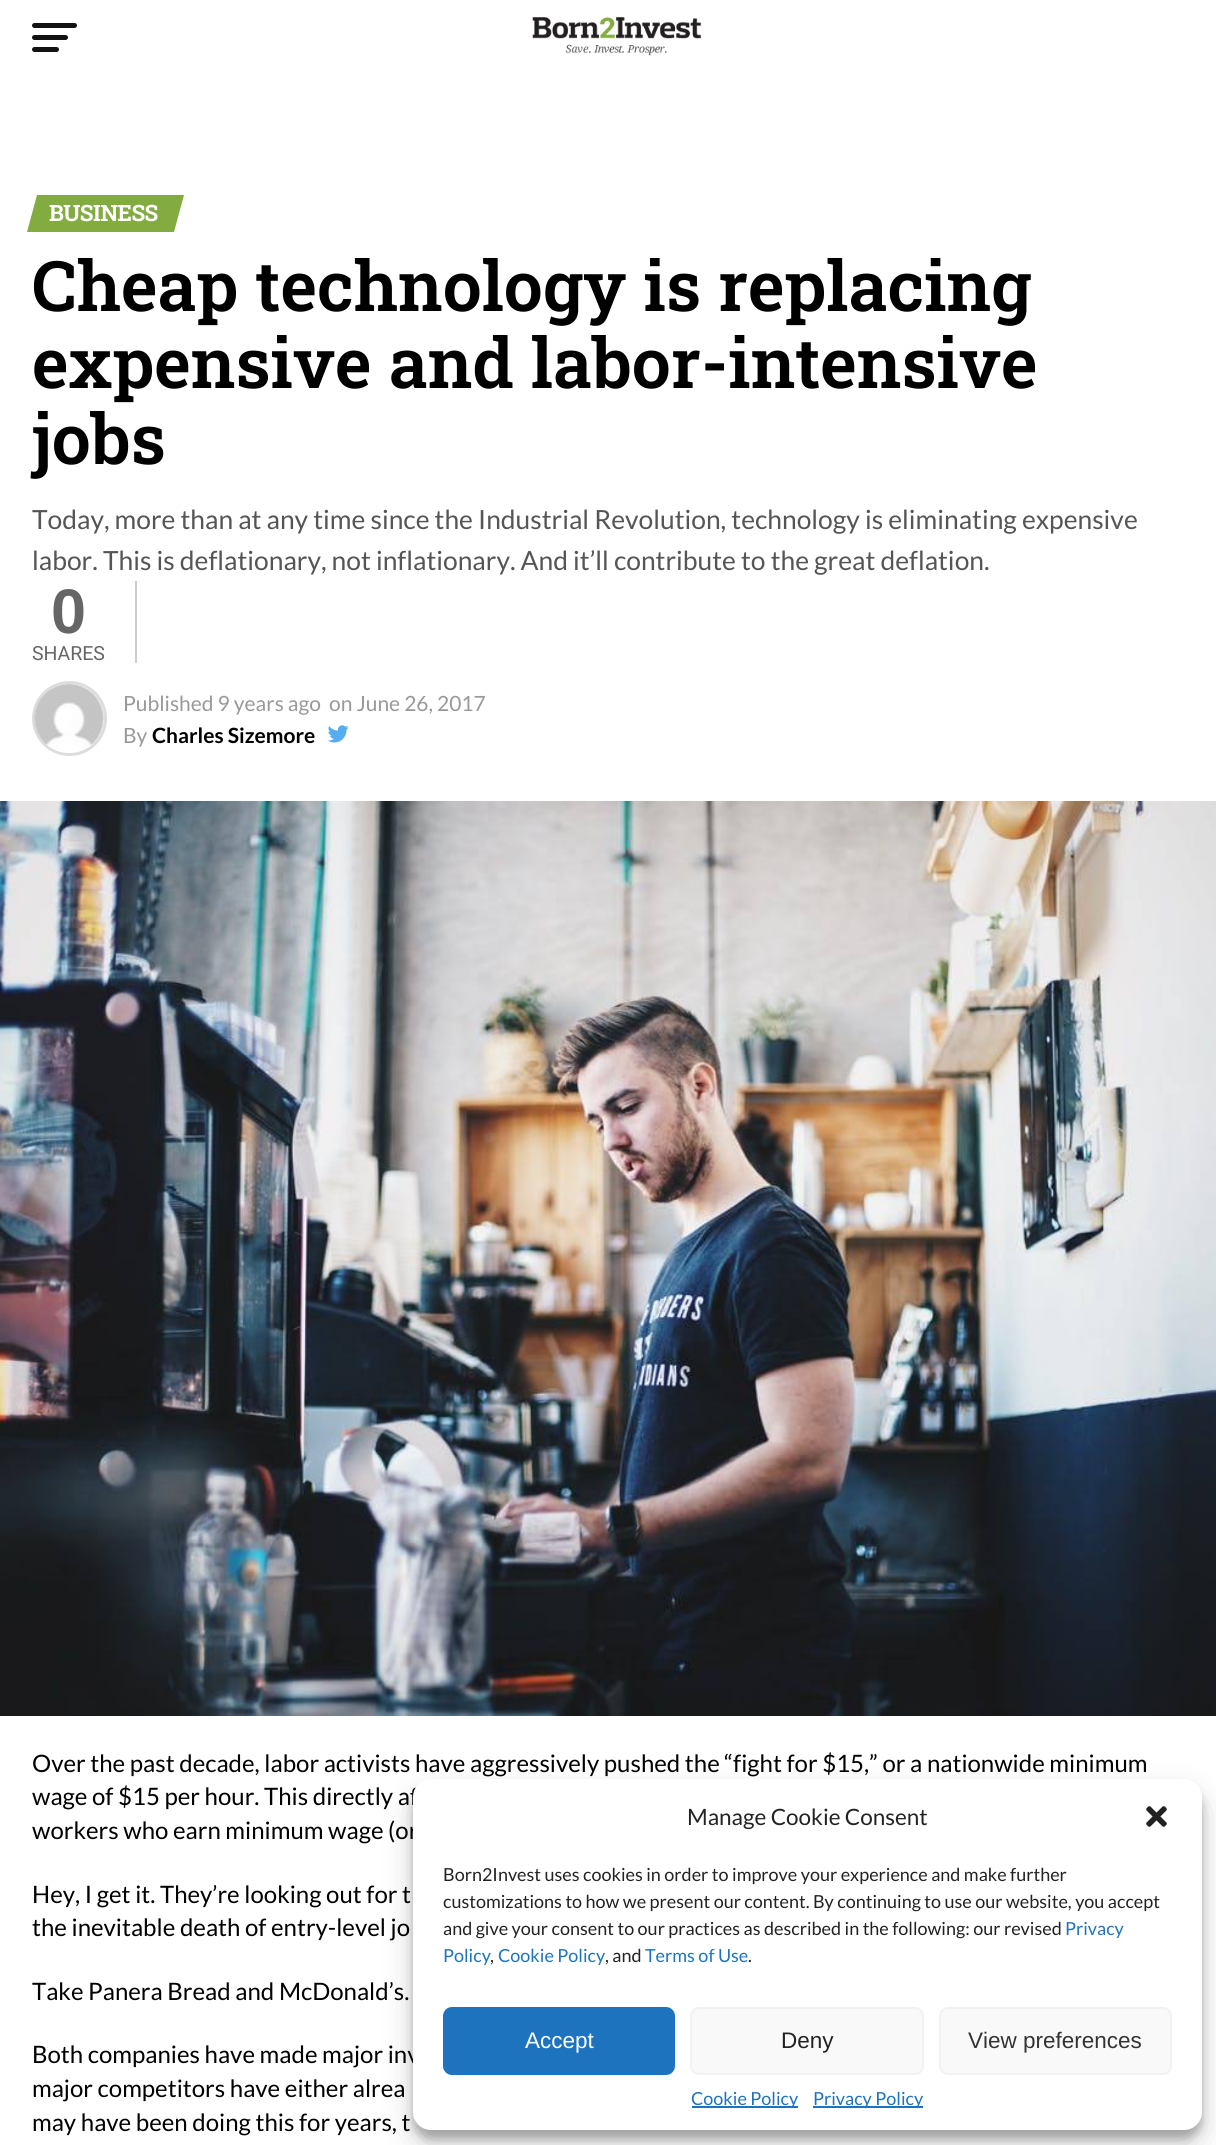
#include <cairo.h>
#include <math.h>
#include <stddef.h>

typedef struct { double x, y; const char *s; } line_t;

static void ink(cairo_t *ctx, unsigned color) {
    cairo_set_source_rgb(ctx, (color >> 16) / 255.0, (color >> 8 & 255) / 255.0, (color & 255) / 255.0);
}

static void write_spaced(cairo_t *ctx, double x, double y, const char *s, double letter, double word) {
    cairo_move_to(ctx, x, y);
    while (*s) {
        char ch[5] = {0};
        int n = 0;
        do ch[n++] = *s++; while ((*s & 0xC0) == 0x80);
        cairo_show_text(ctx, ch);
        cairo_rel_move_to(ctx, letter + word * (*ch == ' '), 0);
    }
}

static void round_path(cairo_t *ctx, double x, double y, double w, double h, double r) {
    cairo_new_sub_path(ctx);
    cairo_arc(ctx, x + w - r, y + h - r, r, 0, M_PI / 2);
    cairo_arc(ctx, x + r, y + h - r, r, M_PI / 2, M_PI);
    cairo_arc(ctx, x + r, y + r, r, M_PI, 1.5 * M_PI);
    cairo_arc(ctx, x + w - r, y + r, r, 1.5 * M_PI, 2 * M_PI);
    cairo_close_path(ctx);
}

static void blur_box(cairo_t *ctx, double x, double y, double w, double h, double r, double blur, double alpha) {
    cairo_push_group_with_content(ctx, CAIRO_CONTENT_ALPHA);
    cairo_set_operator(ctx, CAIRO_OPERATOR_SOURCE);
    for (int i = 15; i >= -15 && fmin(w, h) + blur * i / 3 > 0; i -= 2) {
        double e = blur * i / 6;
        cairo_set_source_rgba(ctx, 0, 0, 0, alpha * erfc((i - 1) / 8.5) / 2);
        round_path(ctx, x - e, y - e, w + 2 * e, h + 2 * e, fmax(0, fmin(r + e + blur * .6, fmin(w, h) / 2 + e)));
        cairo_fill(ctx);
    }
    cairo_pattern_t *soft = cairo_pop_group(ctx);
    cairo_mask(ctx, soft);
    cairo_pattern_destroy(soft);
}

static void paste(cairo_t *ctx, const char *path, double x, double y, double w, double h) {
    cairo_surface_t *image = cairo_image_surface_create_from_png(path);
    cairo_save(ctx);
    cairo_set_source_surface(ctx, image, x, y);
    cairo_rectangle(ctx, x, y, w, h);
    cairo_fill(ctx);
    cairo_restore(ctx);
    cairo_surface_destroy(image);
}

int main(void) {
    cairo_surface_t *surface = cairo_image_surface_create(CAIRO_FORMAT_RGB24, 1216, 2145);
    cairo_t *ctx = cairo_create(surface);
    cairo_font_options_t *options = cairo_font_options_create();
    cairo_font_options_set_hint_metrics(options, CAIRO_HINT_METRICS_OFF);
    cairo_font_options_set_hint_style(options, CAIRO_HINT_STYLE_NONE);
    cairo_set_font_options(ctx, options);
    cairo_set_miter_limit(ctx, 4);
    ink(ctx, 0xFFFFFF);
    cairo_paint(ctx);
    ink(ctx, 0x131212);
    round_path(ctx, 32, 23, 45, 5, 2.5);
    cairo_fill(ctx);
    round_path(ctx, 32, 35, 36, 5, 2.5);
    cairo_fill(ctx);
    round_path(ctx, 32, 47, 27, 5, 2.5);
    cairo_fill(ctx);
    paste(ctx, "media/1.png", 532, 17, 170, 39);
    ink(ctx, 0x82AB40);
    cairo_new_path(ctx);
    cairo_move_to(ctx, 37, 195);
    cairo_line_to(ctx, 184, 195);
    cairo_line_to(ctx, 174, 232);
    cairo_line_to(ctx, 27, 232);
    cairo_close_path(ctx);
    cairo_fill(ctx);
    cairo_select_font_face(ctx, "Roboto Slab", CAIRO_FONT_SLANT_NORMAL, CAIRO_FONT_WEIGHT_BOLD);
    cairo_set_font_size(ctx, 22.5);
    ink(ctx, 0xFFFFFF);
    write_spaced(ctx, 49, 221, "BUSINESS", -0.5, 0);
    cairo_select_font_face(ctx, "Roboto Slab SemiBold", CAIRO_FONT_SLANT_NORMAL, CAIRO_FONT_WEIGHT_NORMAL);
    cairo_set_font_size(ctx, 69.6);
    ink(ctx, 0x000000);
    {
        static const line_t items[] = {
            {32, 311, "Cheap technology is replacing"},
            {32, 388, "expensive and labor-intensive"},
            {32, 464, "jobs"},
        };
        for (size_t i = 0; i < sizeof items / sizeof *items; i++) {
            cairo_move_to(ctx, items[i].x, items[i].y);
            cairo_show_text(ctx, items[i].s);
        }
    }
    cairo_select_font_face(ctx, "Lato", CAIRO_FONT_SLANT_NORMAL, CAIRO_FONT_WEIGHT_NORMAL);
    cairo_set_font_size(ctx, 26.4);
    ink(ctx, 0x555555);
    cairo_move_to(ctx, 32, 529);
    cairo_show_text(ctx, "Today, more than at any time since the Industrial Revolution, technology is eliminating expensive");
    cairo_move_to(ctx, 32, 570);
    cairo_show_text(ctx, "labor. This is deflationary, not inflationary. And it’ll contribute to the great deflation.");
    ink(ctx, 0xCCCCCC);
    cairo_rectangle(ctx, 135, 581, 2, 82);
    cairo_fill(ctx);
    cairo_select_font_face(ctx, "Liberation Sans", CAIRO_FONT_SLANT_NORMAL, CAIRO_FONT_WEIGHT_BOLD);
    cairo_set_font_size(ctx, 63);
    ink(ctx, 0x666666);
    cairo_move_to(ctx, 51, 633);
    cairo_show_text(ctx, "0");
    cairo_select_font_face(ctx, "Roboto", CAIRO_FONT_SLANT_NORMAL, CAIRO_FONT_WEIGHT_NORMAL);
    cairo_set_font_size(ctx, 19.5);
    cairo_move_to(ctx, 32, 660);
    cairo_show_text(ctx, "SHARES");
    cairo_new_path(ctx);
    cairo_arc(ctx, 69.5, 718.5, 36, 0, 2 * M_PI);
    ink(ctx, 0xDDDDDD);
    cairo_set_line_width(ctx, 3);
    cairo_stroke(ctx);
    paste(ctx, "media/2.png", 34, 684, 70, 69);
    cairo_select_font_face(ctx, "Lato", CAIRO_FONT_SLANT_NORMAL, CAIRO_FONT_WEIGHT_NORMAL);
    cairo_set_font_size(ctx, 21);
    ink(ctx, 0x999999);
    {
        static const line_t items[] = {
            {123, 711, "Published 9 years ago"},
            {329, 711, "on June 26, 2017"},
            {123, 743, "By"},
        };
        for (size_t i = 0; i < sizeof items / sizeof *items; i++) {
            cairo_move_to(ctx, items[i].x, items[i].y);
            cairo_show_text(ctx, items[i].s);
        }
    }
    cairo_select_font_face(ctx, "Lato", CAIRO_FONT_SLANT_NORMAL, CAIRO_FONT_WEIGHT_BOLD);
    ink(ctx, 0x000000);
    cairo_move_to(ctx, 152, 743);
    cairo_show_text(ctx, "Charles Sizemore");
    paste(ctx, "media/3.png", 327, 725, 22, 18);
    paste(ctx, "media/4.png", 0, 801, 1216, 915);
    cairo_select_font_face(ctx, "Lato", CAIRO_FONT_SLANT_NORMAL, CAIRO_FONT_WEIGHT_NORMAL);
    cairo_set_font_size(ctx, 24);
    {
        static const line_t items[] = {
            {32, 1772, "Over the past decade, labor activists have aggressively pushed the “fight for $15,” or a nationwide minimum"},
            {32, 1805, "wage of $15 per hour. This directly af"},
            {32, 1839, "workers who earn minimum wage (or"},
            {32, 1903, "Hey, I get it. They’re looking out for t"},
            {32, 1936, "the inevitable death of entry-level jo"},
            {32, 2000, "Take Panera Bread and McDonald’s."},
            {32, 2063, "Both companies have made major inv"},
            {32, 2097, "major competitors have either alrea"},
            {32, 2131, "may have been doing this for years, t"},
        };
        for (size_t i = 0; i < sizeof items / sizeof *items; i++) {
            cairo_move_to(ctx, items[i].x, items[i].y);
            cairo_show_text(ctx, items[i].s);
        }
    }
    ink(ctx, 0x000000);
    blur_box(ctx, 413, 1788, 789, 351, 18, 4.5, 0.23);
    blur_box(ctx, 413, 1794, 789, 351, 18, 15, 0.19);
    ink(ctx, 0xFFFFFF);
    round_path(ctx, 413, 1779, 789, 351, 18);
    cairo_fill(ctx);
    cairo_set_font_size(ctx, 22.5);
    ink(ctx, 0x222222);
    cairo_move_to(ctx, 687, 1825);
    cairo_show_text(ctx, "Manage Cookie Consent");
    paste(ctx, "media/5.png", 1146, 1806, 21, 21);
    cairo_set_font_size(ctx, 18);
    {
        static const line_t items[] = {
            {443, 1881, "Born2Invest uses cookies in order to improve your experience and make further"},
            {443, 1908, "customizations to how we present our content. By continuing to use our website, you accept"},
            {443, 1935, "and give your consent to our practices as described in the following: our revised"},
        };
        for (size_t i = 0; i < sizeof items / sizeof *items; i++) {
            cairo_move_to(ctx, items[i].x, items[i].y);
            cairo_show_text(ctx, items[i].s);
        }
    }
    ink(ctx, 0x1E73BE);
    cairo_move_to(ctx, 1065, 1935);
    cairo_show_text(ctx, "Privacy");
    cairo_move_to(ctx, 443, 1962);
    cairo_show_text(ctx, "Policy");
    ink(ctx, 0x222222);
    cairo_move_to(ctx, 490, 1962);
    cairo_show_text(ctx, ",");
    ink(ctx, 0x1E73BE);
    cairo_move_to(ctx, 498, 1962);
    cairo_show_text(ctx, "Cookie Policy");
    ink(ctx, 0x222222);
    cairo_move_to(ctx, 605, 1962);
    cairo_show_text(ctx, ", and");
    ink(ctx, 0x1E73BE);
    cairo_move_to(ctx, 645, 1962);
    cairo_show_text(ctx, "Terms of Use");
    ink(ctx, 0x222222);
    cairo_move_to(ctx, 748, 1962);
    cairo_show_text(ctx, ".");
    ink(ctx, 0x1E73BE);
    round_path(ctx, 444, 2008, 230, 66, 8);
    cairo_fill_preserve(ctx);
    cairo_set_line_width(ctx, 2);
    cairo_stroke(ctx);
    cairo_select_font_face(ctx, "Liberation Sans", CAIRO_FONT_SLANT_NORMAL, CAIRO_FONT_WEIGHT_NORMAL);
    cairo_set_font_size(ctx, 22.5);
    ink(ctx, 0xFFFFFF);
    cairo_move_to(ctx, 525, 2048);
    cairo_show_text(ctx, "Accept");
    ink(ctx, 0xF9F9F9);
    round_path(ctx, 691, 2008, 232, 66, 8);
    cairo_fill_preserve(ctx);
    ink(ctx, 0xF2F2F2);
    cairo_stroke(ctx);
    ink(ctx, 0x222222);
    cairo_move_to(ctx, 781, 2048);
    cairo_show_text(ctx, "Deny");
    ink(ctx, 0xF9F9F9);
    round_path(ctx, 940, 2008, 231, 66, 8);
    cairo_fill_preserve(ctx);
    ink(ctx, 0xF2F2F2);
    cairo_stroke(ctx);
    ink(ctx, 0x333333);
    cairo_move_to(ctx, 968, 2048);
    cairo_show_text(ctx, "View preferences");
    ink(ctx, 0x1E73BE);
    cairo_rectangle(ctx, 692, 2106, 106, 2);
    cairo_fill(ctx);
    cairo_select_font_face(ctx, "Lato", CAIRO_FONT_SLANT_NORMAL, CAIRO_FONT_WEIGHT_NORMAL);
    cairo_set_font_size(ctx, 18);
    cairo_move_to(ctx, 691, 2105);
    cairo_show_text(ctx, "Cookie Policy");
    cairo_rectangle(ctx, 813, 2106, 110, 2);
    cairo_fill(ctx);
    cairo_move_to(ctx, 813, 2105);
    cairo_show_text(ctx, "Privacy Policy");
    cairo_surface_write_to_png(surface, "image.png");
    cairo_font_options_destroy(options);
    cairo_destroy(ctx);
    cairo_surface_destroy(surface);
    return 0;
}
